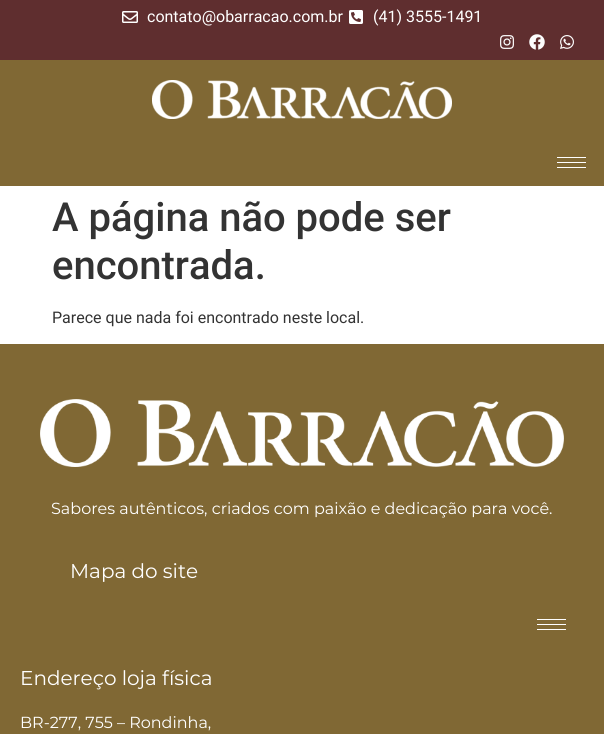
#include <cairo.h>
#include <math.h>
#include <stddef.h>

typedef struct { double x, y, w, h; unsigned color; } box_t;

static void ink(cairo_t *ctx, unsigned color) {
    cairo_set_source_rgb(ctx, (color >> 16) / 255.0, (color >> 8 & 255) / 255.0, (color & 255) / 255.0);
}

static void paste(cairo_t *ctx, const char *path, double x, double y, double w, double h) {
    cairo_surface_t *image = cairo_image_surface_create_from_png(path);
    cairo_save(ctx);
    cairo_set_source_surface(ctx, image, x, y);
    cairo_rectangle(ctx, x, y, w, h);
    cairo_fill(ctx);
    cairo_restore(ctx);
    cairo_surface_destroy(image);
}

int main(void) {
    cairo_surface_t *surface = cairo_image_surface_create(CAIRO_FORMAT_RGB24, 604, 734);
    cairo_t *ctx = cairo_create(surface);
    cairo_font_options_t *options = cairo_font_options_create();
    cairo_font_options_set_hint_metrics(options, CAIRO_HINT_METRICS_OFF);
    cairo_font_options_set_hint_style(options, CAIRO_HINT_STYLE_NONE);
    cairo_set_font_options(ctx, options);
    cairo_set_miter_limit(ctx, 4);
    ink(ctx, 0xFFFFFF);
    cairo_paint(ctx);
    ink(ctx, 0x5F2E2F);
    cairo_rectangle(ctx, 0, 0, 604, 60);
    cairo_fill(ctx);
    paste(ctx, "media/1.png", 122, 11, 16, 12);
    cairo_select_font_face(ctx, "Roboto", CAIRO_FONT_SLANT_NORMAL, CAIRO_FONT_WEIGHT_NORMAL);
    cairo_set_font_size(ctx, 16);
    ink(ctx, 0xFFFFFF);
    cairo_move_to(ctx, 147, 22);
    cairo_show_text(ctx, "contato@obarracao.com.br");
    paste(ctx, "media/2.png", 349, 10, 14, 14);
    cairo_move_to(ctx, 373, 22);
    cairo_show_text(ctx, "(41) 3555-1491");
    paste(ctx, "media/3.png", 500, 35, 14, 14);
    paste(ctx, "media/4.png", 529, 34, 16, 16);
    paste(ctx, "media/5.png", 560, 35, 14, 14);
    ink(ctx, 0x806834);
    cairo_rectangle(ctx, 0, 60, 604, 126);
    cairo_fill(ctx);
    paste(ctx, "media/6.png", 152, 80, 300, 39);
    {
        static const box_t items[] = {
            {557, 157, 29, 1, 0xFFFFFF},
            {557, 162, 29, 1, 0xFFFFFF},
            {557, 167, 29, 1, 0xFFFFFF},
        };
        for (size_t i = 0; i < sizeof items / sizeof *items; i++) {
            ink(ctx, items[i].color);
            cairo_rectangle(ctx, items[i].x, items[i].y, items[i].w, items[i].h);
            cairo_fill(ctx);
        }
    }
    cairo_select_font_face(ctx, "Roboto Medium", CAIRO_FONT_SLANT_NORMAL, CAIRO_FONT_WEIGHT_NORMAL);
    cairo_set_font_size(ctx, 40);
    ink(ctx, 0x333333);
    cairo_move_to(ctx, 52, 231);
    cairo_show_text(ctx, "A página não pode ser");
    cairo_move_to(ctx, 52, 279);
    cairo_show_text(ctx, "encontrada.");
    cairo_select_font_face(ctx, "Roboto", CAIRO_FONT_SLANT_NORMAL, CAIRO_FONT_WEIGHT_NORMAL);
    cairo_set_font_size(ctx, 16);
    cairo_move_to(ctx, 52, 323);
    cairo_show_text(ctx, "Parece que nada foi encontrado neste local.");
    ink(ctx, 0x806834);
    cairo_rectangle(ctx, 0, 344, 604, 390);
    cairo_fill(ctx);
    paste(ctx, "media/7.png", 40, 399, 524, 68);
    cairo_select_font_face(ctx, "Montserrat", CAIRO_FONT_SLANT_NORMAL, CAIRO_FONT_WEIGHT_NORMAL);
    ink(ctx, 0xFFFFFF);
    cairo_move_to(ctx, 51, 514);
    cairo_show_text(ctx, "Sabores autênticos, criados com paixão e dedicação para você.");
    cairo_set_font_size(ctx, 20);
    cairo_move_to(ctx, 70, 578);
    cairo_show_text(ctx, "Mapa do site");
    {
        static const box_t items[] = {
            {537, 619, 29, 1, 0xFFFFFF},
            {537, 624, 29, 1, 0xFFFFFF},
            {537, 629, 29, 1, 0xFFFFFF},
        };
        for (size_t i = 0; i < sizeof items / sizeof *items; i++) {
            ink(ctx, items[i].color);
            cairo_rectangle(ctx, items[i].x, items[i].y, items[i].w, items[i].h);
            cairo_fill(ctx);
        }
    }
    cairo_move_to(ctx, 20, 685);
    cairo_show_text(ctx, "Endereço loja física");
    cairo_set_font_size(ctx, 16);
    cairo_move_to(ctx, 20, 728);
    cairo_show_text(ctx, "BR-277, 755 – Rondinha,");
    cairo_surface_write_to_png(surface, "image.png");
    cairo_font_options_destroy(options);
    cairo_destroy(ctx);
    cairo_surface_destroy(surface);
    return 0;
}
